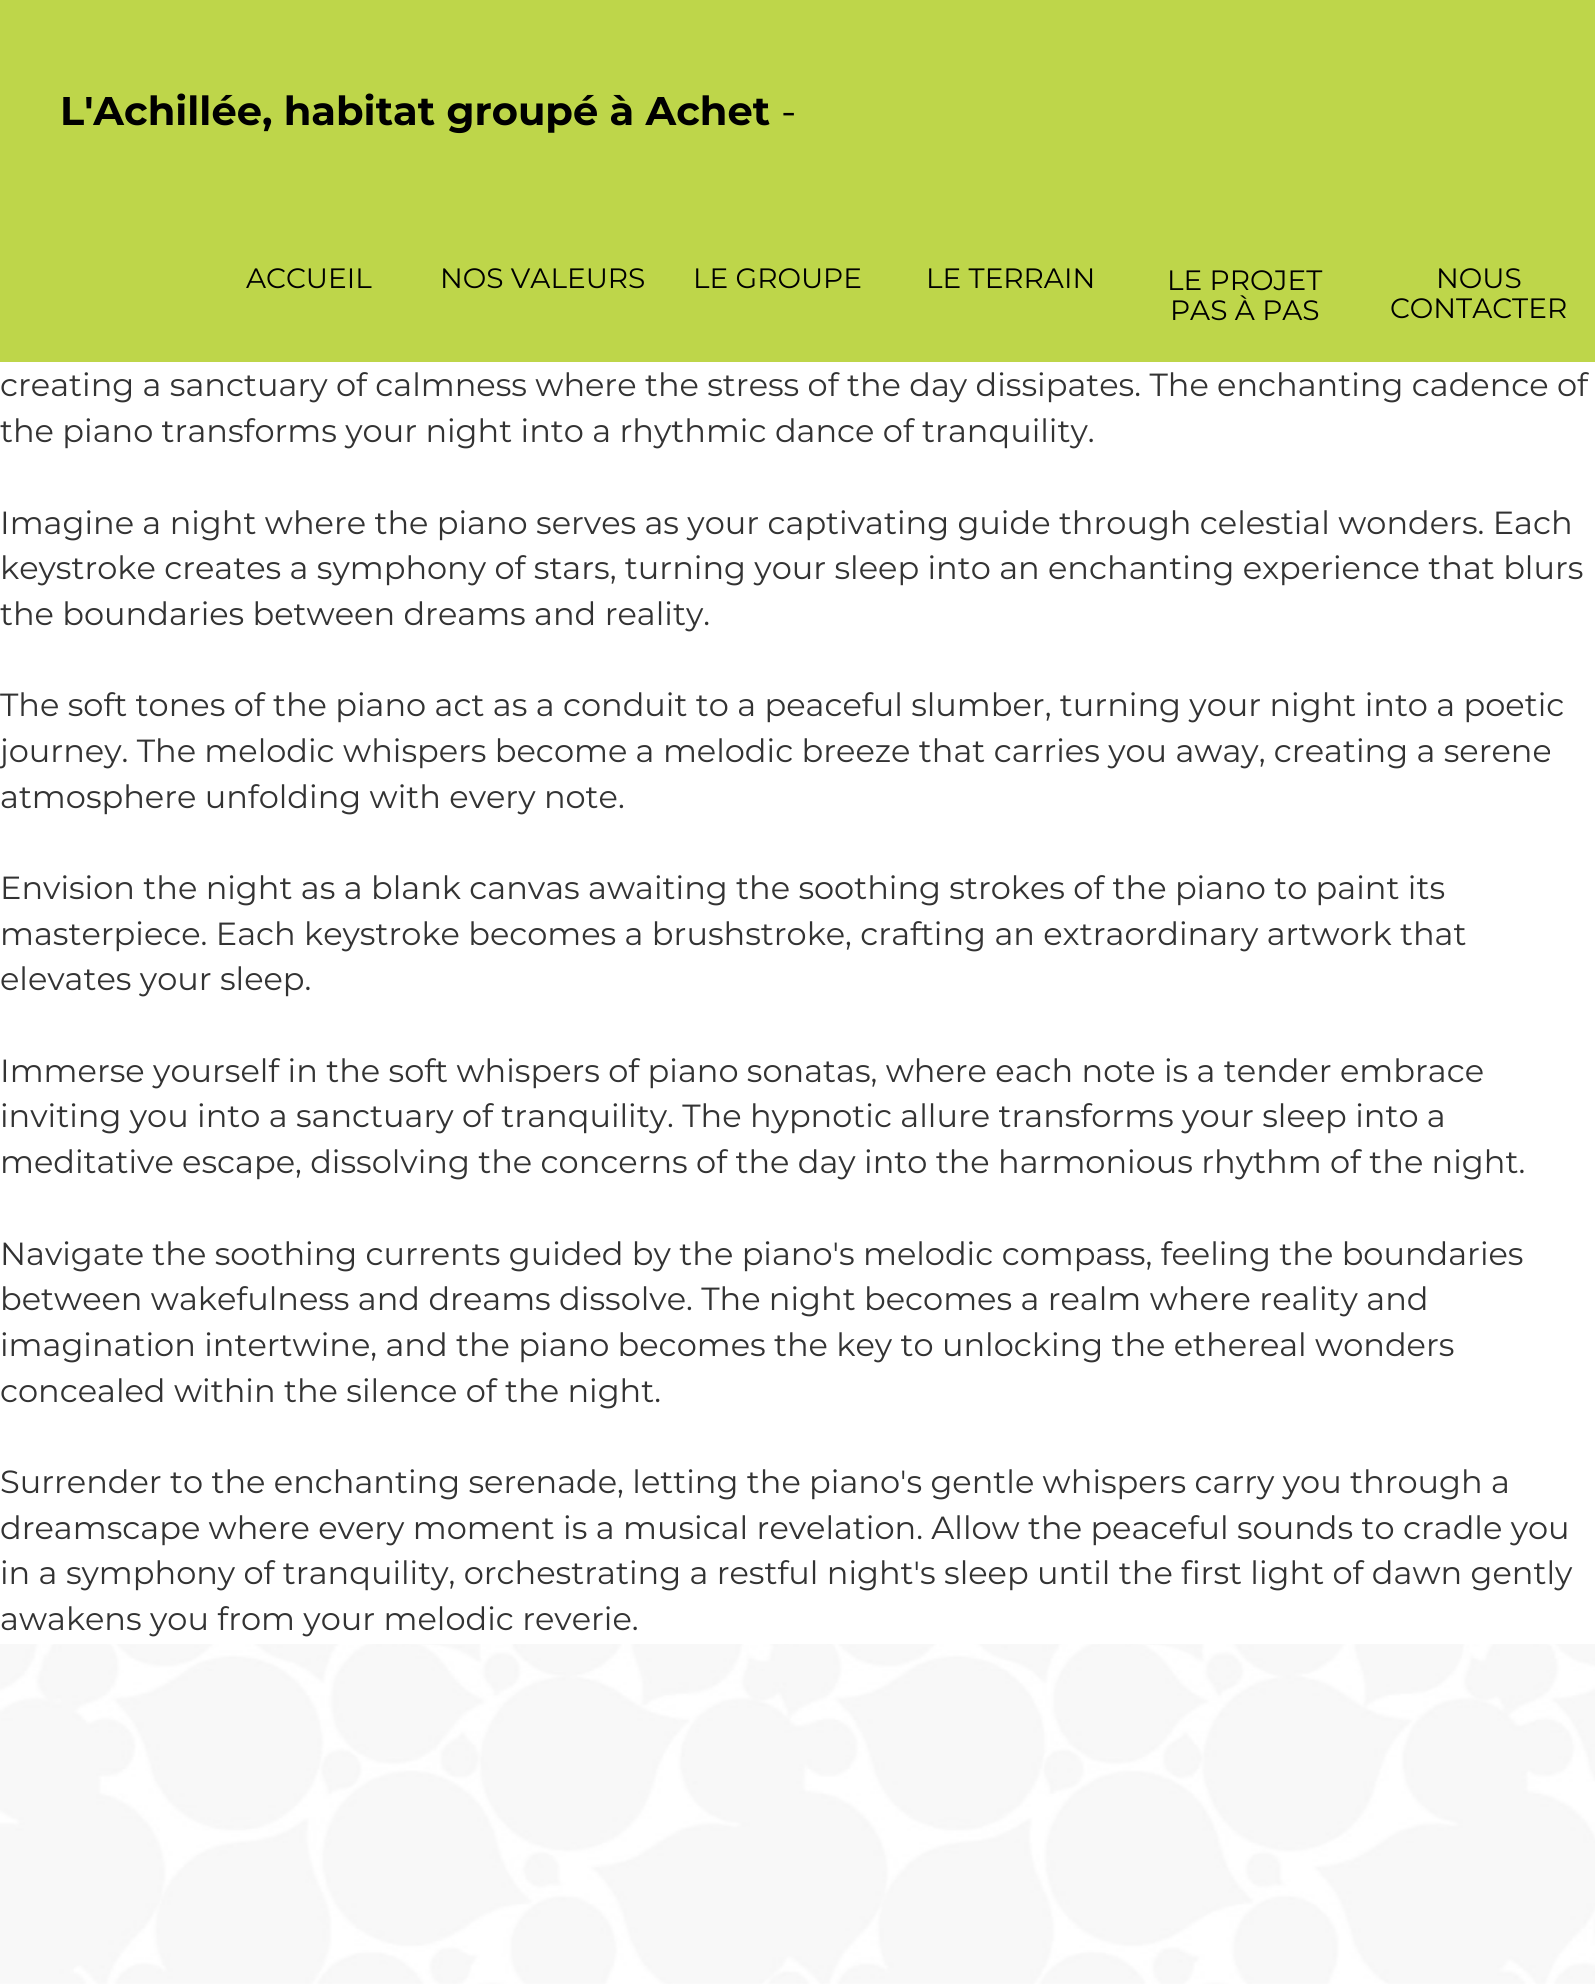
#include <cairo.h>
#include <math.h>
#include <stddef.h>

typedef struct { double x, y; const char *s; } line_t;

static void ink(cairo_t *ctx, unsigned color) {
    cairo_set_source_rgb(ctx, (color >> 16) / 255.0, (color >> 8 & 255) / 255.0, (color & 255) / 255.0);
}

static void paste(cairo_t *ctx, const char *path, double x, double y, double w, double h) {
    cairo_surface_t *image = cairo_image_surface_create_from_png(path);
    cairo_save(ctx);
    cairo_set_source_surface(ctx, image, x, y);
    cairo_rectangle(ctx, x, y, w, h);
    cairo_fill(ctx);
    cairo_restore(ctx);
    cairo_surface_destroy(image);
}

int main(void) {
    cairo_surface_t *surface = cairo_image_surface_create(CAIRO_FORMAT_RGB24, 1595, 1984);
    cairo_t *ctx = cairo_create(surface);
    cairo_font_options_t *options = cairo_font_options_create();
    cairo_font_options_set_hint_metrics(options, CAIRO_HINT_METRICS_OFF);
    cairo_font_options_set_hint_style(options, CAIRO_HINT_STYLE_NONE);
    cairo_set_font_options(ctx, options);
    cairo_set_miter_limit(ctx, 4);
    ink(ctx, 0xFFFFFF);
    cairo_paint(ctx);
    paste(ctx, "media/1.png", 0, 1644, 1595, 340);
    ink(ctx, 0xBED64A);
    cairo_rectangle(ctx, 0, 0, 1595, 362);
    cairo_fill(ctx);
    cairo_select_font_face(ctx, "Montserrat", CAIRO_FONT_SLANT_NORMAL, CAIRO_FONT_WEIGHT_BOLD);
    cairo_set_font_size(ctx, 40);
    ink(ctx, 0x000000);
    cairo_move_to(ctx, 60, 125);
    cairo_show_text(ctx, "L'Achillée, habitat groupé à Achet");
    cairo_select_font_face(ctx, "Montserrat", CAIRO_FONT_SLANT_NORMAL, CAIRO_FONT_WEIGHT_NORMAL);
    cairo_move_to(ctx, 781, 125);
    cairo_show_text(ctx, "-");
    cairo_set_font_size(ctx, 28);
    {
        static const line_t items[] = {
            {246, 288, "ACCUEIL"},
            {440, 288, "NOS VALEURS"},
            {693, 288, "LE GROUPE"},
            {926, 288, "LE TERRAIN"},
            {1167, 290, "LE PROJET"},
            {1170, 320, "PAS À PAS"},
            {1436, 288, "NOUS"},
            {1390, 318, "CONTACTER"},
        };
        for (size_t i = 0; i < sizeof items / sizeof *items; i++) {
            cairo_move_to(ctx, items[i].x, items[i].y);
            cairo_show_text(ctx, items[i].s);
        }
    }
    cairo_set_font_size(ctx, 32);
    ink(ctx, 0x333333);
    {
        static const line_t items[] = {
            {0, 396, "creating a sanctuary of calmness where the stress of the day dissipates. The enchanting cadence of"},
            {0, 442, "the piano transforms your night into a rhythmic dance of tranquility."},
            {0, 534, "Imagine a night where the piano serves as your captivating guide through celestial wonders. Each"},
            {0, 579, "keystroke creates a symphony of stars, turning your sleep into an enchanting experience that blurs"},
            {0, 625, "the boundaries between dreams and reality."},
            {0, 716, "The soft tones of the piano act as a conduit to a peaceful slumber, turning your night into a poetic"},
            {0, 762, "journey. The melodic whispers become a melodic breeze that carries you away, creating a serene"},
            {0, 808, "atmosphere unfolding with every note."},
            {0, 899, "Envision the night as a blank canvas awaiting the soothing strokes of the piano to paint its"},
            {0, 945, "masterpiece. Each keystroke becomes a brushstroke, crafting an extraordinary artwork that"},
            {0, 990, "elevates your sleep."},
            {0, 1082, "Immerse yourself in the soft whispers of piano sonatas, where each note is a tender embrace"},
            {0, 1127, "inviting you into a sanctuary of tranquility. The hypnotic allure transforms your sleep into a"},
            {0, 1173, "meditative escape, dissolving the concerns of the day into the harmonious rhythm of the night."},
            {0, 1265, "Navigate the soothing currents guided by the piano's melodic compass, feeling the boundaries"},
            {0, 1310, "between wakefulness and dreams dissolve. The night becomes a realm where reality and"},
            {0, 1356, "imagination intertwine, and the piano becomes the key to unlocking the ethereal wonders"},
            {0, 1402, "concealed within the silence of the night."},
            {0, 1493, "Surrender to the enchanting serenade, letting the piano's gentle whispers carry you through a"},
            {0, 1539, "dreamscape where every moment is a musical revelation. Allow the peaceful sounds to cradle you"},
            {0, 1584, "in a symphony of tranquility, orchestrating a restful night's sleep until the first light of dawn gently"},
            {0, 1630, "awakens you from your melodic reverie."},
        };
        for (size_t i = 0; i < sizeof items / sizeof *items; i++) {
            cairo_move_to(ctx, items[i].x, items[i].y);
            cairo_show_text(ctx, items[i].s);
        }
    }
    cairo_surface_write_to_png(surface, "image.png");
    cairo_font_options_destroy(options);
    cairo_destroy(ctx);
    cairo_surface_destroy(surface);
    return 0;
}
